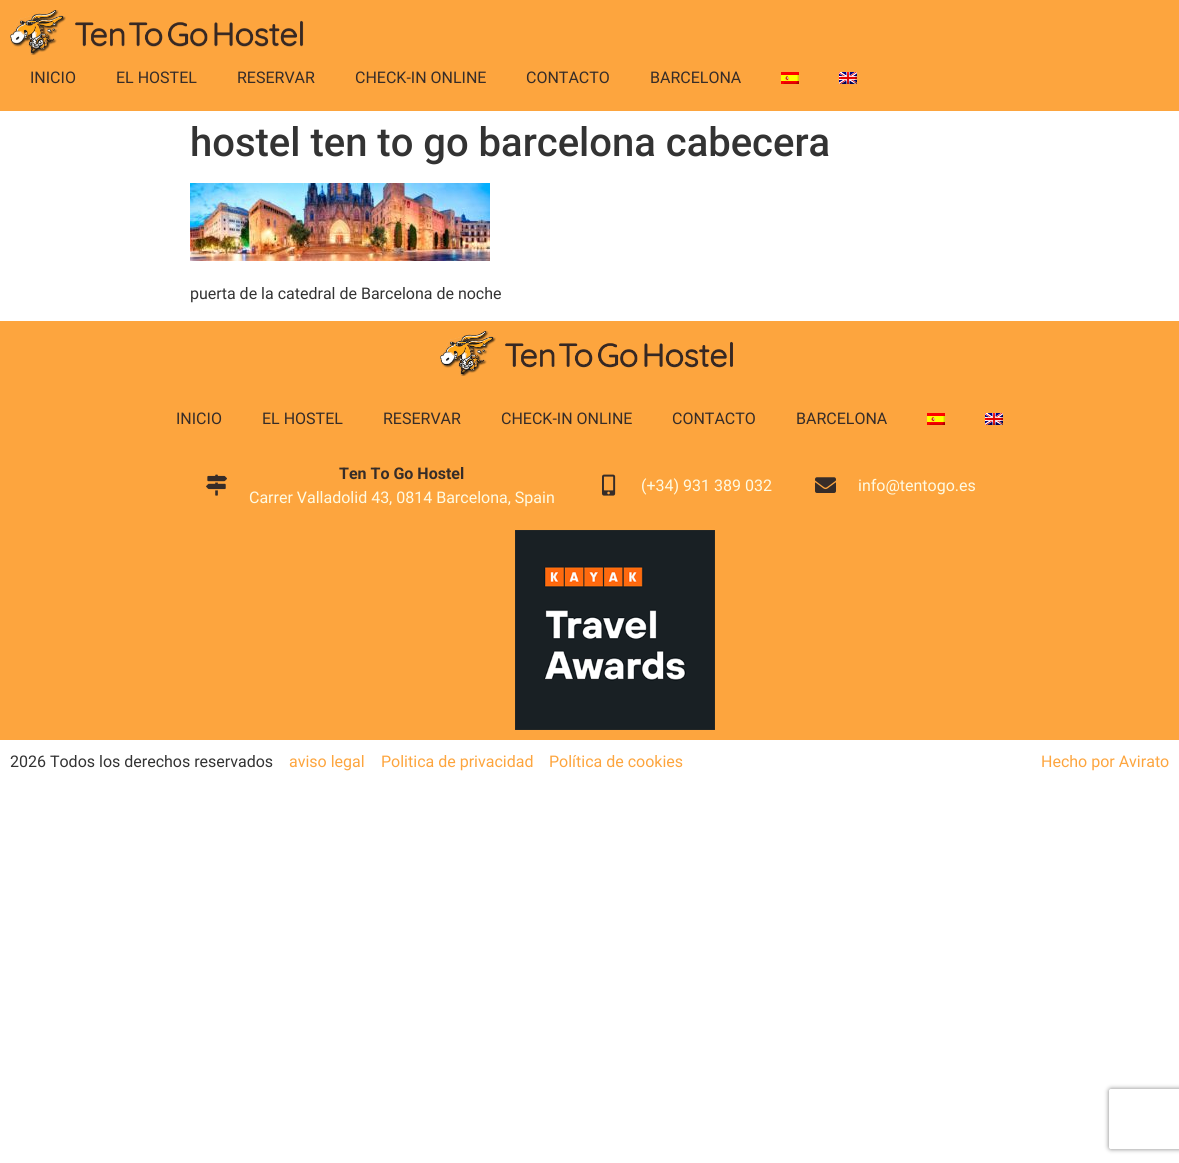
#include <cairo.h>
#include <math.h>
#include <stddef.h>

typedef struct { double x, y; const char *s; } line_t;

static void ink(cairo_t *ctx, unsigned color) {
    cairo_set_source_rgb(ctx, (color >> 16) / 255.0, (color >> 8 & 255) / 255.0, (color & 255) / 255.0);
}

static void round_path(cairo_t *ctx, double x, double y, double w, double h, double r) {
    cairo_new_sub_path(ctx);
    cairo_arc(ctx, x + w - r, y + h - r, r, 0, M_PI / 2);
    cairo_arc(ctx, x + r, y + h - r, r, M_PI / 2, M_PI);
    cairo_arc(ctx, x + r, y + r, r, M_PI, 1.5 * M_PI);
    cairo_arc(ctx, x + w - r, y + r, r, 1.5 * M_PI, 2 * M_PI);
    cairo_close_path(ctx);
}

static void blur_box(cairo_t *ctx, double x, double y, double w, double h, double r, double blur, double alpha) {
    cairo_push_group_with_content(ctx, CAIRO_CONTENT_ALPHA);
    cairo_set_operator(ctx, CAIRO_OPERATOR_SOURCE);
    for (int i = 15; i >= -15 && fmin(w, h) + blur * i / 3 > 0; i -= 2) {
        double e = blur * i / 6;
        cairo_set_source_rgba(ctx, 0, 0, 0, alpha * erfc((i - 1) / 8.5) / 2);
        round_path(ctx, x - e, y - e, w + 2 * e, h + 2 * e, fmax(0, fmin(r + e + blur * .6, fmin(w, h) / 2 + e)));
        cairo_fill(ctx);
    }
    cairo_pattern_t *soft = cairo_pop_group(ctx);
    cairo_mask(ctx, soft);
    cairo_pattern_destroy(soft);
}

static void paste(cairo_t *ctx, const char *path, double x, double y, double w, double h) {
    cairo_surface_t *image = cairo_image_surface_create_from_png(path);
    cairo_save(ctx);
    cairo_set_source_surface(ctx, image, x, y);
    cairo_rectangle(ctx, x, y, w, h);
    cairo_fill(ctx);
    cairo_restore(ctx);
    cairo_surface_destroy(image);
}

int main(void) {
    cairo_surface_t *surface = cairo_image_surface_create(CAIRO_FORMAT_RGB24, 1179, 1163);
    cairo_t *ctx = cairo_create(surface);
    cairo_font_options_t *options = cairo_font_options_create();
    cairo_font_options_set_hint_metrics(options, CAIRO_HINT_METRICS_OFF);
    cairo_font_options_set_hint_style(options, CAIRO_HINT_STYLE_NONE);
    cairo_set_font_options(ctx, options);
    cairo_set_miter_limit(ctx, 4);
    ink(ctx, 0xFFFFFF);
    cairo_paint(ctx);
    ink(ctx, 0xFDA53E);
    cairo_rectangle(ctx, 0, 0, 1179, 111);
    cairo_fill(ctx);
    paste(ctx, "media/1.png", 10, 10, 294, 45);
    cairo_select_font_face(ctx, "Roboto", CAIRO_FONT_SLANT_NORMAL, CAIRO_FONT_WEIGHT_NORMAL);
    cairo_set_font_size(ctx, 16);
    ink(ctx, 0x362C28);
    {
        static const line_t items[] = {
            {30, 83, "INICIO"},
            {116, 83, "EL HOSTEL"},
            {237, 83, "RESERVAR"},
            {355, 83, "CHECK-IN ONLINE"},
            {526, 83, "CONTACTO"},
            {650, 83, "BARCELONA"},
        };
        for (size_t i = 0; i < sizeof items / sizeof *items; i++) {
            cairo_move_to(ctx, items[i].x, items[i].y);
            cairo_show_text(ctx, items[i].s);
        }
    }
    paste(ctx, "media/2.png", 781, 72, 18, 12);
    paste(ctx, "media/3.png", 839, 72, 18, 12);
    cairo_select_font_face(ctx, "Roboto Medium", CAIRO_FONT_SLANT_NORMAL, CAIRO_FONT_WEIGHT_NORMAL);
    cairo_set_font_size(ctx, 40);
    ink(ctx, 0x333333);
    cairo_move_to(ctx, 190, 156);
    cairo_show_text(ctx, "hostel ten to go barcelona cabecera");
    paste(ctx, "media/4.png", 190, 183, 300, 78);
    cairo_select_font_face(ctx, "Roboto", CAIRO_FONT_SLANT_NORMAL, CAIRO_FONT_WEIGHT_NORMAL);
    cairo_set_font_size(ctx, 16);
    cairo_move_to(ctx, 190, 299);
    cairo_show_text(ctx, "puerta de la catedral de Barcelona de noche");
    ink(ctx, 0xFDA53E);
    cairo_rectangle(ctx, 0, 321, 1179, 419);
    cairo_fill(ctx);
    paste(ctx, "media/5.png", 440, 331, 293, 45);
    ink(ctx, 0x362C28);
    {
        static const line_t items[] = {
            {176, 424, "INICIO"},
            {262, 424, "EL HOSTEL"},
            {383, 424, "RESERVAR"},
            {501, 424, "CHECK-IN ONLINE"},
            {672, 424, "CONTACTO"},
            {796, 424, "BARCELONA"},
        };
        for (size_t i = 0; i < sizeof items / sizeof *items; i++) {
            cairo_move_to(ctx, items[i].x, items[i].y);
            cairo_show_text(ctx, items[i].s);
        }
    }
    paste(ctx, "media/2.png", 927, 413, 18, 12);
    paste(ctx, "media/3.png", 985, 413, 18, 12);
    paste(ctx, "media/6.png", 206, 474, 21, 22);
    cairo_select_font_face(ctx, "Roboto", CAIRO_FONT_SLANT_NORMAL, CAIRO_FONT_WEIGHT_BOLD);
    cairo_move_to(ctx, 339, 479);
    cairo_show_text(ctx, "Ten To Go Hostel");
    cairo_select_font_face(ctx, "Roboto", CAIRO_FONT_SLANT_NORMAL, CAIRO_FONT_WEIGHT_NORMAL);
    ink(ctx, 0xFEFAE2);
    cairo_move_to(ctx, 249, 503);
    cairo_show_text(ctx, "Carrer Valladolid 43, 0814 Barcelona, Spain");
    paste(ctx, "media/7.png", 602, 474, 14, 22);
    cairo_move_to(ctx, 641, 491);
    cairo_show_text(ctx, "(+34) 931 389 032");
    paste(ctx, "media/8.png", 815, 477, 21, 16);
    cairo_move_to(ctx, 858, 491);
    cairo_show_text(ctx, "info@tentogo.es");
    paste(ctx, "media/9.png", 515, 530, 200, 200);
    ink(ctx, 0x333333);
    cairo_move_to(ctx, 10, 767);
    cairo_show_text(ctx, "2026 Todos los derechos reservados");
    ink(ctx, 0xFDA53E);
    {
        static const line_t items[] = {
            {289, 767, "aviso legal"},
            {381, 767, "Politica de privacidad"},
            {549, 767, "Política de cookies"},
            {1041, 767, "Hecho por Avirato"},
        };
        for (size_t i = 0; i < sizeof items / sizeof *items; i++) {
            cairo_move_to(ctx, items[i].x, items[i].y);
            cairo_show_text(ctx, items[i].s);
        }
    }
    cairo_save(ctx);
    cairo_set_fill_rule(ctx, CAIRO_FILL_RULE_EVEN_ODD);
    cairo_new_path(ctx);
    cairo_move_to(ctx, 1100, 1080);
    cairo_line_to(ctx, 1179, 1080);
    cairo_line_to(ctx, 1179, 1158);
    cairo_line_to(ctx, 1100, 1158);
    cairo_close_path(ctx);
    cairo_move_to(ctx, 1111, 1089);
    cairo_line_to(ctx, 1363, 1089);
    cairo_curve_to(ctx, 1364, 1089, 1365, 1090, 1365, 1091);
    cairo_line_to(ctx, 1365, 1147);
    cairo_curve_to(ctx, 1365, 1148, 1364, 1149, 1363, 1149);
    cairo_line_to(ctx, 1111, 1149);
    cairo_curve_to(ctx, 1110, 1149, 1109, 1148, 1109, 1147);
    cairo_line_to(ctx, 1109, 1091);
    cairo_curve_to(ctx, 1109, 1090, 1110, 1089, 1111, 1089);
    cairo_close_path(ctx);
    cairo_clip(ctx);
    ink(ctx, 0x808080);
    blur_box(ctx, 1109, 1089, 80, 60, 2, 2.5, 1);
    cairo_restore(ctx);
    cairo_surface_write_to_png(surface, "image.png");
    cairo_font_options_destroy(options);
    cairo_destroy(ctx);
    cairo_surface_destroy(surface);
    return 0;
}
